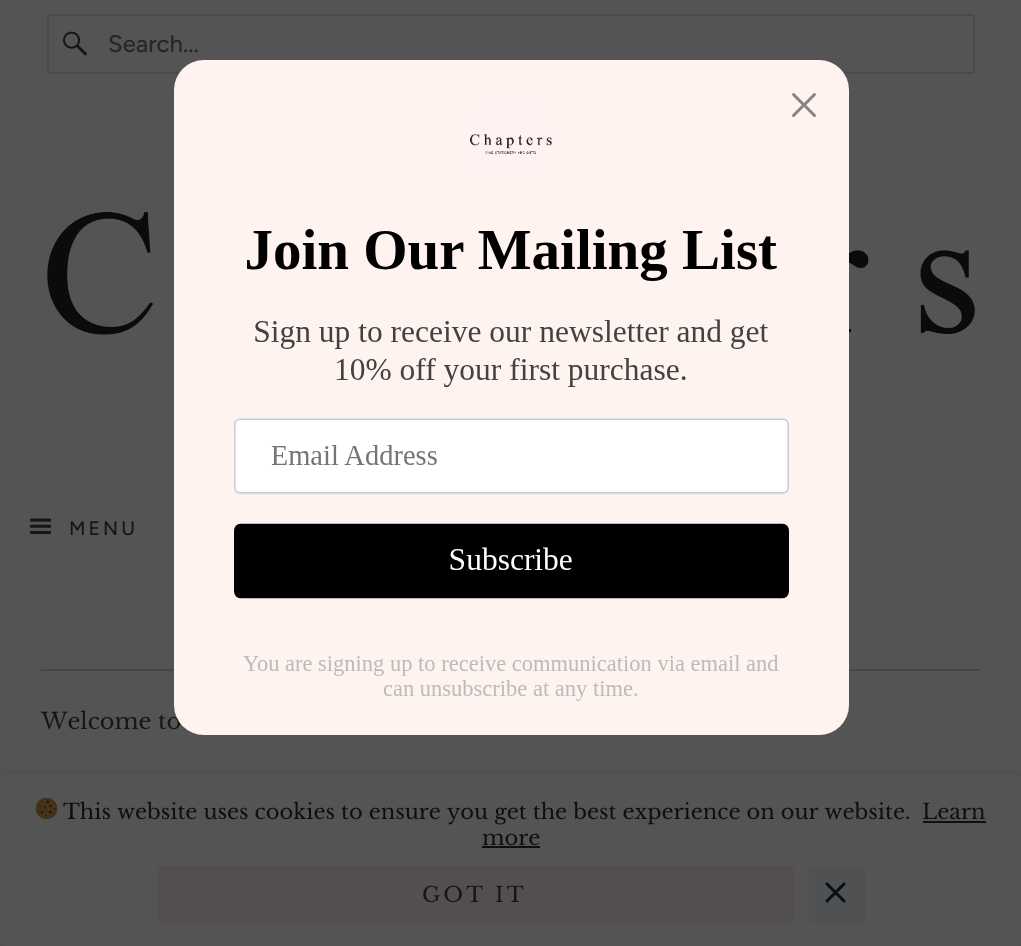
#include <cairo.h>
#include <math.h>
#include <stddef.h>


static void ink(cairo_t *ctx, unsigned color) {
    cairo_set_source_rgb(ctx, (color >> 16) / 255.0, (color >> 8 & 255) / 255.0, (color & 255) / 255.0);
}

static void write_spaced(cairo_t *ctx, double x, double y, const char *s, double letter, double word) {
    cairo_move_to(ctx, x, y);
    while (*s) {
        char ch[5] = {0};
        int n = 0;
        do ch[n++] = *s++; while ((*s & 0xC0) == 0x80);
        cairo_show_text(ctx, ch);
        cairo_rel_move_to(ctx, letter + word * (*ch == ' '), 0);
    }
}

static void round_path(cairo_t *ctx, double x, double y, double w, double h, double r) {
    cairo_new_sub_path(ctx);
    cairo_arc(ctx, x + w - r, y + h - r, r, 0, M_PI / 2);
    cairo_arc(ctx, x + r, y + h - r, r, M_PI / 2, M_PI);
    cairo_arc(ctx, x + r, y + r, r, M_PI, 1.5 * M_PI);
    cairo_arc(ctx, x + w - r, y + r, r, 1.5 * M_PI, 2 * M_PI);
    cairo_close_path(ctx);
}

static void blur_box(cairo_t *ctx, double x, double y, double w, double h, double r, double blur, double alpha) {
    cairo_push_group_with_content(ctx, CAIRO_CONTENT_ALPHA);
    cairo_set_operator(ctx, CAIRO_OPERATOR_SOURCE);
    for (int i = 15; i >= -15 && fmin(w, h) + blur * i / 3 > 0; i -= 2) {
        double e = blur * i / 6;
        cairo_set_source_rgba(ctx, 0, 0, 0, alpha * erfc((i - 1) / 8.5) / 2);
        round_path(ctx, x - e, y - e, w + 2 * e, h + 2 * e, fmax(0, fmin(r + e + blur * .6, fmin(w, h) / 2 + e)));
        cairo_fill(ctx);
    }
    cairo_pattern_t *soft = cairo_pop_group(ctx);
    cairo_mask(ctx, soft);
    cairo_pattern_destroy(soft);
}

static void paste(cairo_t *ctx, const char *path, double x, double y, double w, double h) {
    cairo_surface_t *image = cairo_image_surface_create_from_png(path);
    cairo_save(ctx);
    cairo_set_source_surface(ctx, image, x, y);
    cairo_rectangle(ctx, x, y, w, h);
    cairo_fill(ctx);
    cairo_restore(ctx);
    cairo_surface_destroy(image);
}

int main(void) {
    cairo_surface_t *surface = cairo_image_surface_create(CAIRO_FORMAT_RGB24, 1021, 946);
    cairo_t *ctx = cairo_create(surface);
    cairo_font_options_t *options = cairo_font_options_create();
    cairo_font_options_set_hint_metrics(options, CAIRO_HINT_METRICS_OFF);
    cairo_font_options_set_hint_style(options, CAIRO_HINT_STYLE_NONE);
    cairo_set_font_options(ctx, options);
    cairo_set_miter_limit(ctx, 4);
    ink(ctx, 0xFFFFFF);
    cairo_paint(ctx);
    round_path(ctx, 48, 15, 926, 58, 2);
    ink(ctx, 0xDFDFDF);
    cairo_stroke(ctx);
    paste(ctx, "media/2.png", 63, 31, 24, 25);
    cairo_select_font_face(ctx, "Figtree Medium", CAIRO_FONT_SLANT_NORMAL, CAIRO_FONT_WEIGHT_NORMAL);
    cairo_set_font_size(ctx, 24);
    ink(ctx, 0x757575);
    cairo_move_to(ctx, 108, 52);
    cairo_show_text(ctx, "Search...");
    paste(ctx, "media/3.png", 47, 209, 929, 243);
    paste(ctx, "media/4.png", 30, 518, 21, 16);
    cairo_set_font_size(ctx, 19.5);
    ink(ctx, 0x444444);
    write_spaced(ctx, 69, 535, "MENU", 3, 0);
    ink(ctx, 0xD3D3D3);
    cairo_rectangle(ctx, 41, 669, 940, 2);
    cairo_fill(ctx);
    cairo_select_font_face(ctx, "Libre Baskerville", CAIRO_FONT_SLANT_NORMAL, CAIRO_FONT_WEIGHT_NORMAL);
    cairo_set_font_size(ctx, 22.5);
    ink(ctx, 0x444444);
    cairo_move_to(ctx, 41, 729);
    cairo_show_text(ctx, "Welcome to");
    cairo_save(ctx);
    cairo_set_fill_rule(ctx, CAIRO_FILL_RULE_EVEN_ODD);
    cairo_new_path(ctx);
    cairo_move_to(ctx, 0, 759);
    cairo_line_to(ctx, 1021, 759);
    cairo_line_to(ctx, 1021, 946);
    cairo_line_to(ctx, 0, 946);
    cairo_close_path(ctx);
    cairo_move_to(ctx, 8, 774);
    cairo_line_to(ctx, 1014, 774);
    cairo_curve_to(ctx, 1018.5, 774, 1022, 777.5, 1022, 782);
    cairo_line_to(ctx, 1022, 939);
    cairo_curve_to(ctx, 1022, 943.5, 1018.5, 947, 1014, 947);
    cairo_line_to(ctx, 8, 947);
    cairo_curve_to(ctx, 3.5, 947, 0, 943.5, 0, 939);
    cairo_line_to(ctx, 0, 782);
    cairo_curve_to(ctx, 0, 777.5, 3.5, 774, 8, 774);
    cairo_close_path(ctx);
    cairo_clip(ctx);
    ink(ctx, 0x000000);
    blur_box(ctx, 0, 774, 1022, 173, 8, 4.5, 0.12);
    cairo_restore(ctx);
    paste(ctx, "media/5.png", 36, 798, 22, 21);
    cairo_set_font_size(ctx, 21);
    ink(ctx, 0x2D2D2D);
    cairo_move_to(ctx, 63, 819);
    cairo_show_text(ctx, "This website uses cookies to ensure you get the best experience on our website.");
    cairo_move_to(ctx, 922, 819);
    cairo_show_text(ctx, "Learn");
    cairo_rectangle(ctx, 923, 821, 63, 2);
    cairo_fill(ctx);
    cairo_move_to(ctx, 482, 845);
    cairo_show_text(ctx, "more");
    cairo_rectangle(ctx, 482, 846, 58, 2);
    cairo_fill(ctx);
    ink(ctx, 0xFDEFEF);
    round_path(ctx, 158, 866, 636, 57, 3);
    cairo_fill(ctx);
    ink(ctx, 0x444444);
    write_spaced(ctx, 422, 902, "GOT IT", 3, 0);
    ink(ctx, 0xF4F6F8);
    round_path(ctx, 809, 866, 57, 57, 3);
    cairo_fill(ctx);
    paste(ctx, "media/6.png", 825, 882, 21, 21);
    paste(ctx, "media/1.png", 0, 0, 1021, 946);
    cairo_surface_write_to_png(surface, "image.png");
    cairo_font_options_destroy(options);
    cairo_destroy(ctx);
    cairo_surface_destroy(surface);
    return 0;
}
